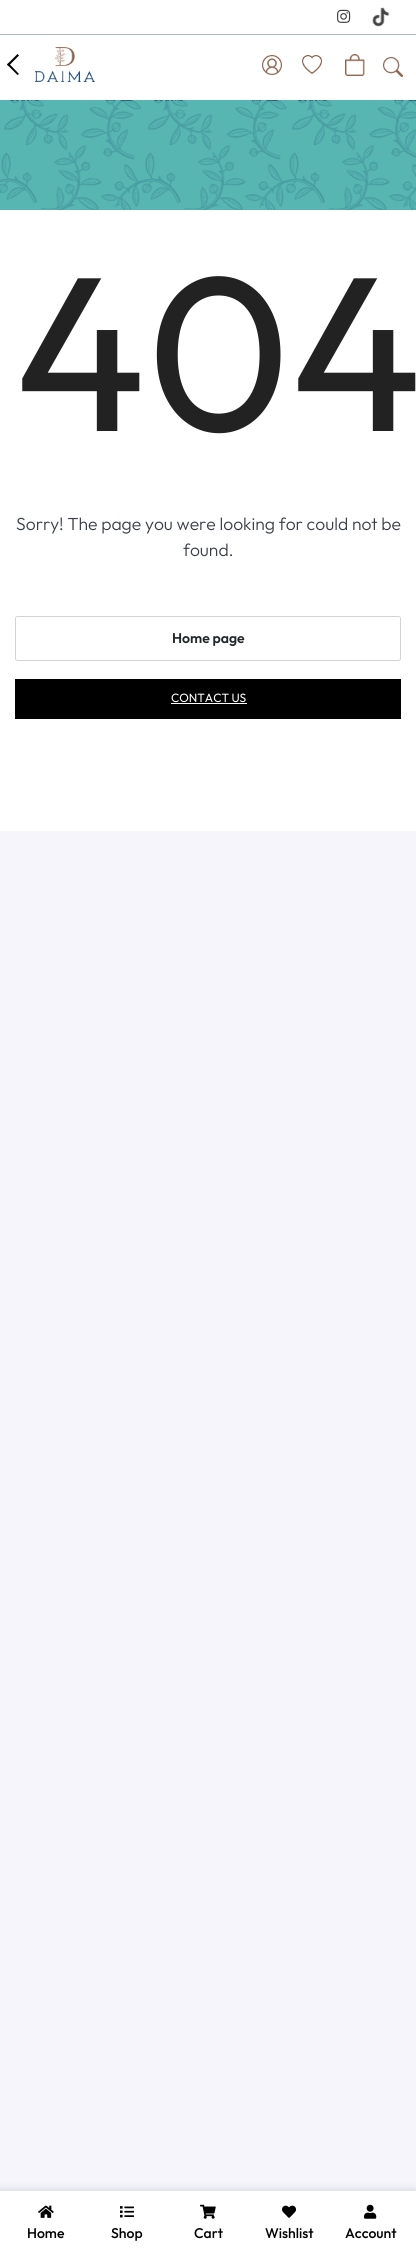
#include <cairo.h>
#include <math.h>
#include <stddef.h>


static void ink(cairo_t *ctx, unsigned color) {
    cairo_set_source_rgb(ctx, (color >> 16) / 255.0, (color >> 8 & 255) / 255.0, (color & 255) / 255.0);
}

static void round_path(cairo_t *ctx, double x, double y, double w, double h, double r) {
    cairo_new_sub_path(ctx);
    cairo_arc(ctx, x + w - r, y + h - r, r, 0, M_PI / 2);
    cairo_arc(ctx, x + r, y + h - r, r, M_PI / 2, M_PI);
    cairo_arc(ctx, x + r, y + r, r, M_PI, 1.5 * M_PI);
    cairo_arc(ctx, x + w - r, y + r, r, 1.5 * M_PI, 2 * M_PI);
    cairo_close_path(ctx);
}

static void blur_box(cairo_t *ctx, double x, double y, double w, double h, double r, double blur, double alpha) {
    cairo_push_group_with_content(ctx, CAIRO_CONTENT_ALPHA);
    cairo_set_operator(ctx, CAIRO_OPERATOR_SOURCE);
    for (int i = 15; i >= -15 && fmin(w, h) + blur * i / 3 > 0; i -= 2) {
        double e = blur * i / 6;
        cairo_set_source_rgba(ctx, 0, 0, 0, alpha * erfc((i - 1) / 8.5) / 2);
        round_path(ctx, x - e, y - e, w + 2 * e, h + 2 * e, fmax(0, fmin(r + e + blur * .6, fmin(w, h) / 2 + e)));
        cairo_fill(ctx);
    }
    cairo_pattern_t *soft = cairo_pop_group(ctx);
    cairo_mask(ctx, soft);
    cairo_pattern_destroy(soft);
}

static void paste(cairo_t *ctx, const char *path, double x, double y, double w, double h) {
    cairo_surface_t *image = cairo_image_surface_create_from_png(path);
    cairo_save(ctx);
    cairo_set_source_surface(ctx, image, x, y);
    cairo_rectangle(ctx, x, y, w, h);
    cairo_fill(ctx);
    cairo_restore(ctx);
    cairo_surface_destroy(image);
}

int main(void) {
    cairo_surface_t *surface = cairo_image_surface_create(CAIRO_FORMAT_RGB24, 416, 2264);
    cairo_t *ctx = cairo_create(surface);
    cairo_font_options_t *options = cairo_font_options_create();
    cairo_font_options_set_hint_metrics(options, CAIRO_HINT_METRICS_OFF);
    cairo_font_options_set_hint_style(options, CAIRO_HINT_STYLE_NONE);
    cairo_set_font_options(ctx, options);
    cairo_set_miter_limit(ctx, 4);
    ink(ctx, 0xF5F5FB);
    cairo_paint(ctx);
    ink(ctx, 0xFFFFFF);
    cairo_rectangle(ctx, 0, 0, 416, 831);
    cairo_fill(ctx);
    ink(ctx, 0xADB6BB);
    cairo_rectangle(ctx, 0, 34, 416, 1);
    cairo_fill(ctx);
    paste(ctx, "media/1.png", 337, 9, 14, 14);
    paste(ctx, "media/2.png", 372, 7, 18, 20);
    ink(ctx, 0x000000);
    cairo_new_path(ctx);
    cairo_move_to(ctx, 7, 64.5);
    cairo_line_to(ctx, 17.5, 54);
    cairo_line_to(ctx, 19, 55.5);
    cairo_line_to(ctx, 8.5, 66);
    cairo_close_path(ctx);
    cairo_fill(ctx);
    cairo_new_path(ctx);
    cairo_move_to(ctx, 7, 64.5);
    cairo_line_to(ctx, 8.5, 63);
    cairo_line_to(ctx, 19, 74);
    cairo_line_to(ctx, 17.5, 75);
    cairo_close_path(ctx);
    cairo_fill(ctx);
    paste(ctx, "media/3.png", 35, 47, 60, 35);
    paste(ctx, "media/4.png", 262, 55, 20, 20);
    paste(ctx, "media/5.png", 302, 55, 20, 19);
    paste(ctx, "media/6.png", 345, 54, 20, 22);
    paste(ctx, "media/7.png", 383, 57, 20, 20);
    paste(ctx, "media/8.png", 0, 100, 416, 110);
    cairo_select_font_face(ctx, "Outfit", CAIRO_FONT_SLANT_NORMAL, CAIRO_FONT_WEIGHT_NORMAL);
    cairo_set_font_size(ctx, 220);
    ink(ctx, 0x222222);
    cairo_move_to(ctx, 15, 431);
    cairo_show_text(ctx, "404");
    cairo_select_font_face(ctx, "Outfit Light", CAIRO_FONT_SLANT_NORMAL, CAIRO_FONT_WEIGHT_NORMAL);
    cairo_set_font_size(ctx, 17.5);
    ink(ctx, 0x393F46);
    cairo_move_to(ctx, 16, 530);
    cairo_show_text(ctx, "Sorry! The page you were looking for could not be");
    cairo_move_to(ctx, 183, 556);
    cairo_show_text(ctx, "found.");
    round_path(ctx, 15.5, 616.5, 385, 44, 2);
    ink(ctx, 0xCED4DA);
    cairo_set_line_width(ctx, 1);
    cairo_stroke(ctx);
    cairo_select_font_face(ctx, "Outfit SemiBold", CAIRO_FONT_SLANT_NORMAL, CAIRO_FONT_WEIGHT_NORMAL);
    cairo_set_font_size(ctx, 14);
    ink(ctx, 0x22262A);
    cairo_move_to(ctx, 172, 643);
    cairo_show_text(ctx, "Home page");
    ink(ctx, 0x000000);
    cairo_rectangle(ctx, 15, 679, 386, 40);
    cairo_fill(ctx);
    cairo_select_font_face(ctx, "Outfit", CAIRO_FONT_SLANT_NORMAL, CAIRO_FONT_WEIGHT_NORMAL);
    cairo_set_font_size(ctx, 12);
    ink(ctx, 0xFFFFFF);
    cairo_move_to(ctx, 171, 702);
    cairo_show_text(ctx, "CONTACT US");
    cairo_rectangle(ctx, 171, 703, 76, 1);
    cairo_fill(ctx);
    ink(ctx, 0xD4D5D9);
    blur_box(ctx, 0, 2190, 416, 73, 0, 4, 1);
    ink(ctx, 0xFFFFFF);
    cairo_rectangle(ctx, 0, 2191, 416, 73);
    cairo_fill(ctx);
    paste(ctx, "media/9.png", 38, 2205, 16, 13);
    cairo_select_font_face(ctx, "Outfit Medium", CAIRO_FONT_SLANT_NORMAL, CAIRO_FONT_WEIGHT_NORMAL);
    cairo_set_font_size(ctx, 14);
    ink(ctx, 0x000000);
    cairo_move_to(ctx, 27, 2238);
    cairo_show_text(ctx, "Home");
    paste(ctx, "media/10.png", 120, 2206, 14, 12);
    cairo_move_to(ctx, 111, 2238);
    cairo_show_text(ctx, "Shop");
    paste(ctx, "media/11.png", 200, 2204, 16, 15);
    cairo_move_to(ctx, 194, 2238);
    cairo_show_text(ctx, "Cart");
    paste(ctx, "media/12.png", 282, 2205, 14, 13);
    cairo_move_to(ctx, 265, 2238);
    cairo_show_text(ctx, "Wishlist");
    paste(ctx, "media/13.png", 364, 2204, 13, 15);
    cairo_move_to(ctx, 345, 2238);
    cairo_show_text(ctx, "Account");
    cairo_surface_write_to_png(surface, "image.png");
    cairo_font_options_destroy(options);
    cairo_destroy(ctx);
    cairo_surface_destroy(surface);
    return 0;
}
